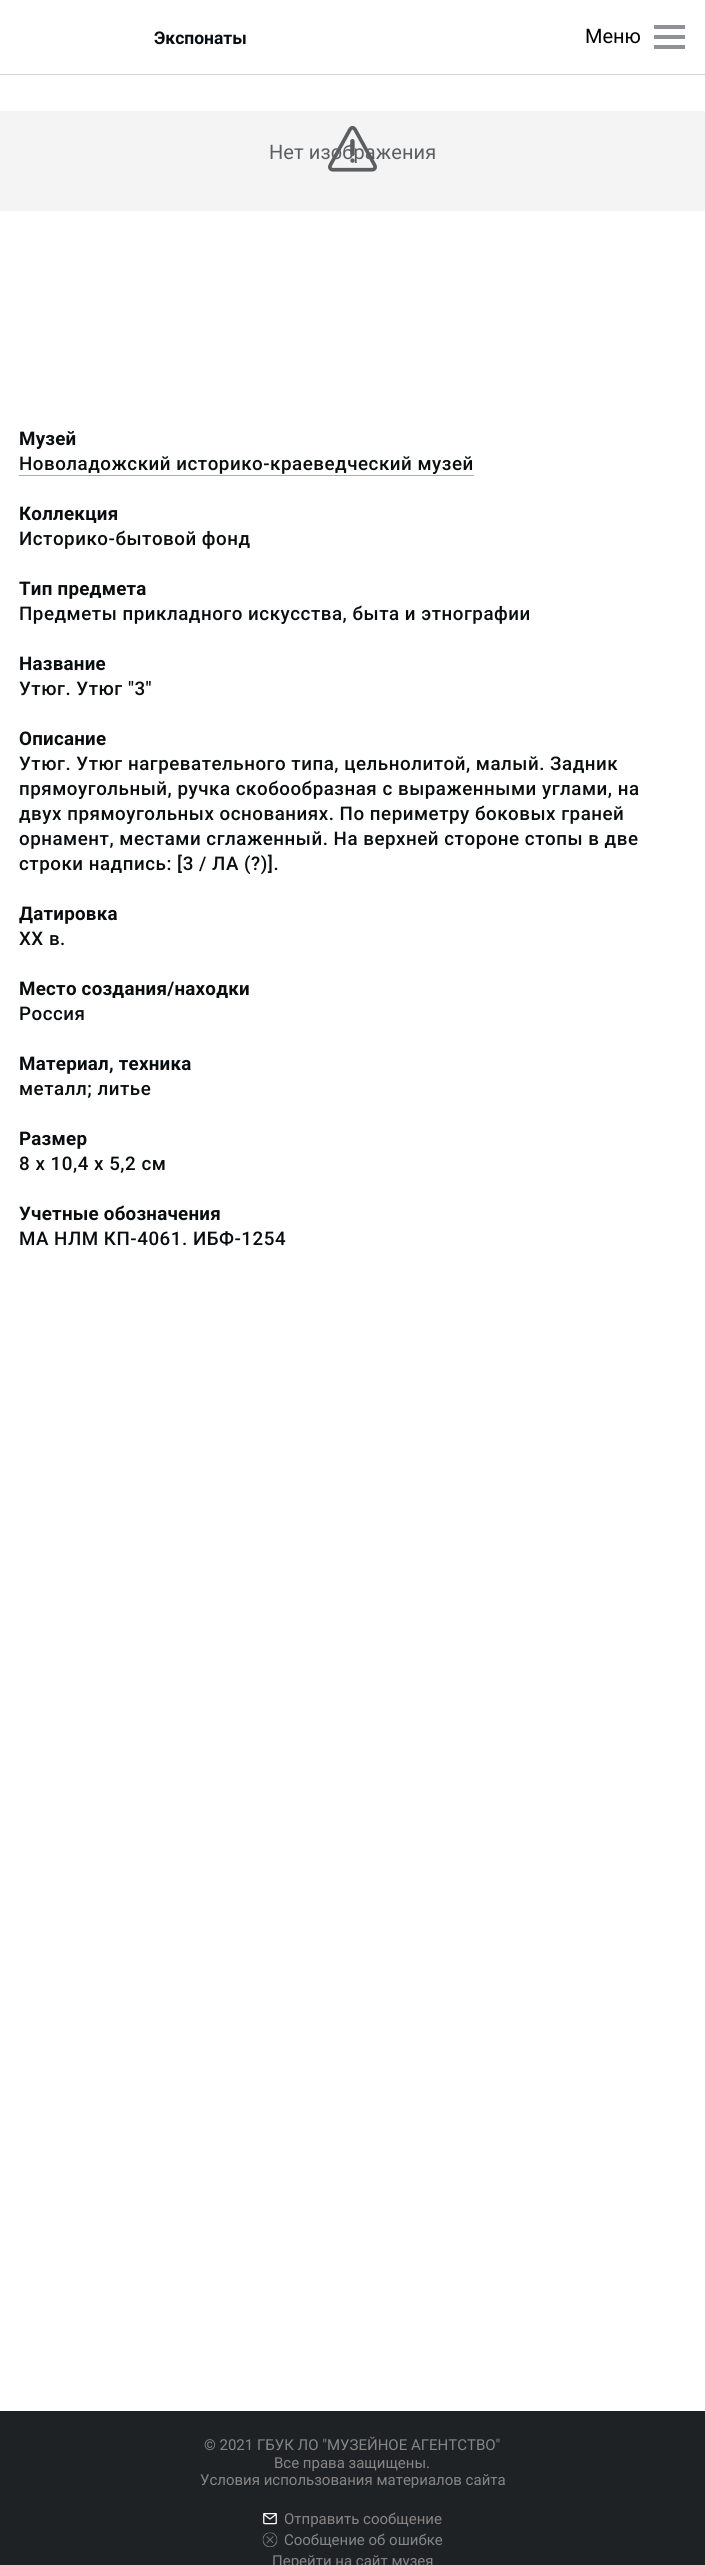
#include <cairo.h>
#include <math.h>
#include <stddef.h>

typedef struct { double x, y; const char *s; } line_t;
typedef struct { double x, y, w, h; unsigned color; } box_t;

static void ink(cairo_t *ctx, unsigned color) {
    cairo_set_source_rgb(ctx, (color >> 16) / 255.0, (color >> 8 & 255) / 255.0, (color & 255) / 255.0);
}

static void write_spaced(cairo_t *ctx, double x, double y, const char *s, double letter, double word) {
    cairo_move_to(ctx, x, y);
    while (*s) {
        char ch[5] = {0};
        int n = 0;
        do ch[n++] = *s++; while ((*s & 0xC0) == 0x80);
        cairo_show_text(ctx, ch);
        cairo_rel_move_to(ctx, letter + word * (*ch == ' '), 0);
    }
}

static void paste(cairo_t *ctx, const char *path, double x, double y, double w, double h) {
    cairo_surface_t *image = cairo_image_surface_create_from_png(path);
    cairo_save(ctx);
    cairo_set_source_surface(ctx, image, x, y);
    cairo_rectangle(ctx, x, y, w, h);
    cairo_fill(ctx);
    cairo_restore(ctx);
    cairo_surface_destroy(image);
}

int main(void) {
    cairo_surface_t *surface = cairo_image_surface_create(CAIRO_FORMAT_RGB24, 705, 2565);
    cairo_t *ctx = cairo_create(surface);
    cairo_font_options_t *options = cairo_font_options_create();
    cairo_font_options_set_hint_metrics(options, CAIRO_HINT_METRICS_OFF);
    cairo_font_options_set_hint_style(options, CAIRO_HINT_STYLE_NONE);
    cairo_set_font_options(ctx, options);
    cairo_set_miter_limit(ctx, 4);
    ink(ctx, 0xFFFFFF);
    cairo_paint(ctx);
    ink(ctx, 0xD3D3D3);
    cairo_rectangle(ctx, 0, 74, 705, 1);
    cairo_fill(ctx);
    cairo_select_font_face(ctx, "Roboto", CAIRO_FONT_SLANT_NORMAL, CAIRO_FONT_WEIGHT_BOLD);
    cairo_set_font_size(ctx, 17.5);
    ink(ctx, 0x0A0D10);
    cairo_move_to(ctx, 154, 44);
    cairo_show_text(ctx, "Экспонаты");
    ink(ctx, 0x8E9195);
    cairo_rectangle(ctx, 654, 25, 31, 4);
    cairo_fill(ctx);
    cairo_select_font_face(ctx, "Roboto", CAIRO_FONT_SLANT_NORMAL, CAIRO_FONT_WEIGHT_NORMAL);
    cairo_set_font_size(ctx, 20);
    ink(ctx, 0x000000);
    cairo_move_to(ctx, 585, 43);
    cairo_show_text(ctx, "Меню");
    {
        static const box_t items[] = {
            {654, 35, 31, 4, 0x8E9195},
            {654, 45, 31, 4, 0x8E9195},
            {0, 111, 705, 100, 0xF4F4F5},
        };
        for (size_t i = 0; i < sizeof items / sizeof *items; i++) {
            ink(ctx, items[i].color);
            cairo_rectangle(ctx, items[i].x, items[i].y, items[i].w, items[i].h);
            cairo_fill(ctx);
        }
    }
    ink(ctx, 0x5C5F62);
    write_spaced(ctx, 269, 159, "Нет изображения", 0.1, 0);
    paste(ctx, "media/1.png", 328, 125, 49, 47);
    cairo_select_font_face(ctx, "Roboto", CAIRO_FONT_SLANT_NORMAL, CAIRO_FONT_WEIGHT_BOLD);
    cairo_set_font_size(ctx, 18.75);
    ink(ctx, 0x0A0D10);
    write_spaced(ctx, 19, 445, "Музей", 0.25, 0);
    cairo_select_font_face(ctx, "Roboto Medium", CAIRO_FONT_SLANT_NORMAL, CAIRO_FONT_WEIGHT_NORMAL);
    write_spaced(ctx, 19, 470, "Новоладожский историко-краеведческий музей", 0.53, 0);
    ink(ctx, 0xACACAC);
    cairo_rectangle(ctx, 19, 475, 455, 1);
    cairo_fill(ctx);
    cairo_select_font_face(ctx, "Roboto", CAIRO_FONT_SLANT_NORMAL, CAIRO_FONT_WEIGHT_BOLD);
    ink(ctx, 0x0A0D10);
    write_spaced(ctx, 19, 520, "Коллекция", 0.25, 0);
    cairo_select_font_face(ctx, "Roboto Medium", CAIRO_FONT_SLANT_NORMAL, CAIRO_FONT_WEIGHT_NORMAL);
    write_spaced(ctx, 19, 545, "Историко-бытовой фонд", 0.53, 0);
    cairo_select_font_face(ctx, "Roboto", CAIRO_FONT_SLANT_NORMAL, CAIRO_FONT_WEIGHT_BOLD);
    write_spaced(ctx, 19, 595, "Тип предмета", 0.25, 0);
    cairo_select_font_face(ctx, "Roboto Medium", CAIRO_FONT_SLANT_NORMAL, CAIRO_FONT_WEIGHT_NORMAL);
    write_spaced(ctx, 19, 620, "Предметы прикладного искусства, быта и этнографии", 0.53, 0);
    cairo_select_font_face(ctx, "Roboto", CAIRO_FONT_SLANT_NORMAL, CAIRO_FONT_WEIGHT_BOLD);
    write_spaced(ctx, 19, 670, "Название", 0.25, 0);
    cairo_select_font_face(ctx, "Roboto Medium", CAIRO_FONT_SLANT_NORMAL, CAIRO_FONT_WEIGHT_NORMAL);
    write_spaced(ctx, 19, 695, "Утюг. Утюг \"3\"", 0.53, 0);
    cairo_select_font_face(ctx, "Roboto", CAIRO_FONT_SLANT_NORMAL, CAIRO_FONT_WEIGHT_BOLD);
    write_spaced(ctx, 19, 745, "Описание", 0.25, 0);
    cairo_select_font_face(ctx, "Roboto Medium", CAIRO_FONT_SLANT_NORMAL, CAIRO_FONT_WEIGHT_NORMAL);
    {
        static const line_t items[] = {
            {19, 770, "Утюг. Утюг нагревательного типа, цельнолитой, малый. Задник"},
            {19, 795, "прямоугольный, ручка скобообразная с выраженными углами, на"},
            {19, 820, "двух прямоугольных основаниях. По периметру боковых граней"},
            {19, 845, "орнамент, местами сглаженный. На верхней стороне стопы в две"},
            {19, 870, "строки надпись: [3 / ЛА (?)]."},
        };
        for (size_t i = 0; i < sizeof items / sizeof *items; i++) {
            write_spaced(ctx, items[i].x, items[i].y, items[i].s, 0.53, 0);
        }
    }
    cairo_select_font_face(ctx, "Roboto", CAIRO_FONT_SLANT_NORMAL, CAIRO_FONT_WEIGHT_BOLD);
    write_spaced(ctx, 19, 920, "Датировка", 0.25, 0);
    cairo_select_font_face(ctx, "Roboto Medium", CAIRO_FONT_SLANT_NORMAL, CAIRO_FONT_WEIGHT_NORMAL);
    write_spaced(ctx, 19, 945, "ХХ в.", 0.53, 0);
    cairo_select_font_face(ctx, "Roboto", CAIRO_FONT_SLANT_NORMAL, CAIRO_FONT_WEIGHT_BOLD);
    write_spaced(ctx, 19, 995, "Место создания/находки", 0.25, 0);
    cairo_select_font_face(ctx, "Roboto Medium", CAIRO_FONT_SLANT_NORMAL, CAIRO_FONT_WEIGHT_NORMAL);
    write_spaced(ctx, 19, 1020, "Россия", 0.53, 0);
    cairo_select_font_face(ctx, "Roboto", CAIRO_FONT_SLANT_NORMAL, CAIRO_FONT_WEIGHT_BOLD);
    write_spaced(ctx, 19, 1070, "Материал, техника", 0.25, 0);
    cairo_select_font_face(ctx, "Roboto Medium", CAIRO_FONT_SLANT_NORMAL, CAIRO_FONT_WEIGHT_NORMAL);
    write_spaced(ctx, 19, 1095, "металл; литье", 0.53, 0);
    cairo_select_font_face(ctx, "Roboto", CAIRO_FONT_SLANT_NORMAL, CAIRO_FONT_WEIGHT_BOLD);
    write_spaced(ctx, 19, 1145, "Размер", 0.25, 0);
    cairo_select_font_face(ctx, "Roboto Medium", CAIRO_FONT_SLANT_NORMAL, CAIRO_FONT_WEIGHT_NORMAL);
    write_spaced(ctx, 19, 1170, "8 х 10,4 х 5,2 см", 0.53, 0);
    cairo_select_font_face(ctx, "Roboto", CAIRO_FONT_SLANT_NORMAL, CAIRO_FONT_WEIGHT_BOLD);
    write_spaced(ctx, 19, 1220, "Учетные обозначения", 0.25, 0);
    cairo_select_font_face(ctx, "Roboto Medium", CAIRO_FONT_SLANT_NORMAL, CAIRO_FONT_WEIGHT_NORMAL);
    write_spaced(ctx, 19, 1245, "МА НЛМ КП-4061. ИБФ-1254", 0.53, 0);
    ink(ctx, 0x1F2224);
    cairo_rectangle(ctx, 0, 2411, 705, 154);
    cairo_fill(ctx);
    cairo_select_font_face(ctx, "Roboto", CAIRO_FONT_SLANT_NORMAL, CAIRO_FONT_WEIGHT_NORMAL);
    cairo_set_font_size(ctx, 15);
    ink(ctx, 0x858585);
    {
        static const line_t items[] = {
            {204, 2450, "© 2021 ГБУК ЛО \"МУЗЕЙНОЕ АГЕНТСТВО\""},
            {274, 2468, "Все права защищены."},
            {200, 2485, "Условия использования материалов сайта"},
        };
        for (size_t i = 0; i < sizeof items / sizeof *items; i++) {
            cairo_move_to(ctx, items[i].x, items[i].y);
            cairo_show_text(ctx, items[i].s);
        }
    }
    paste(ctx, "media/2.png", 263, 2513, 14, 12);
    cairo_move_to(ctx, 284, 2524);
    cairo_show_text(ctx, "Отправить сообщение");
    paste(ctx, "media/3.png", 262, 2532, 16, 15);
    cairo_move_to(ctx, 284, 2545);
    cairo_show_text(ctx, "Сообщение об ошибке");
    cairo_move_to(ctx, 272, 2566);
    cairo_show_text(ctx, "Перейти на сайт музея");
    cairo_surface_write_to_png(surface, "image.png");
    cairo_font_options_destroy(options);
    cairo_destroy(ctx);
    cairo_surface_destroy(surface);
    return 0;
}
